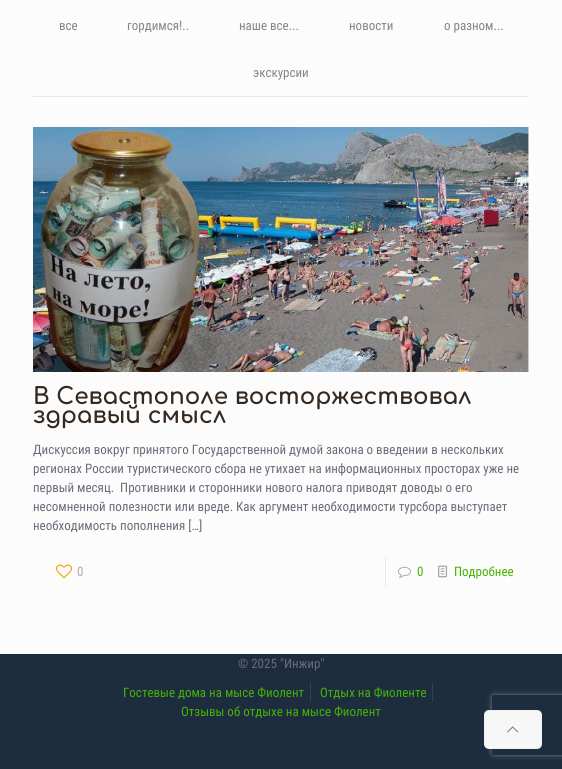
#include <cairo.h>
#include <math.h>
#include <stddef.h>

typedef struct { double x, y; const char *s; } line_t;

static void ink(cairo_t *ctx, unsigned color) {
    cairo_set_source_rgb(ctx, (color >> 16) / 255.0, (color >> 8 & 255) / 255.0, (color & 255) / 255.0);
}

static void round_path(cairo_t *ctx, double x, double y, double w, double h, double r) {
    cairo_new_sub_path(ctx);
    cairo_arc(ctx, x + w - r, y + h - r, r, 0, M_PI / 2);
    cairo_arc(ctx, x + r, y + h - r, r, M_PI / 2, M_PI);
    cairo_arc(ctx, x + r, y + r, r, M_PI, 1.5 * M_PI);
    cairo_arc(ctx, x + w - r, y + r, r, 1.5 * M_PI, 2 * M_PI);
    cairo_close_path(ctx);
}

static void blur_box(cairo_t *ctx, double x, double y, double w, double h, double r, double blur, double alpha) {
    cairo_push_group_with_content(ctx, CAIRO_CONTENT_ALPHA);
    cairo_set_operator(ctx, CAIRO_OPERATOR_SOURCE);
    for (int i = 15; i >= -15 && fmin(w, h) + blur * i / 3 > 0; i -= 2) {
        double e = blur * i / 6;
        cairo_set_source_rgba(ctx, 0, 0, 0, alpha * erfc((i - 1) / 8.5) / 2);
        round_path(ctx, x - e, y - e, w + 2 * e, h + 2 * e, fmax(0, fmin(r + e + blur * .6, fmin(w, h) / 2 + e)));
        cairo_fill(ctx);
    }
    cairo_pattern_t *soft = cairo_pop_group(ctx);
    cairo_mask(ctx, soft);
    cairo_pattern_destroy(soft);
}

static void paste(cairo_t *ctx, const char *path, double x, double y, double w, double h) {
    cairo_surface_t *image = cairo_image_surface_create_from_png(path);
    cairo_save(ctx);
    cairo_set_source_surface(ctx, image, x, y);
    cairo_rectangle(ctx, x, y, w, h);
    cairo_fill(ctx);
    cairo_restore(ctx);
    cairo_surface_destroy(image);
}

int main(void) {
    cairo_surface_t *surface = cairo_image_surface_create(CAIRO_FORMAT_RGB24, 562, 769);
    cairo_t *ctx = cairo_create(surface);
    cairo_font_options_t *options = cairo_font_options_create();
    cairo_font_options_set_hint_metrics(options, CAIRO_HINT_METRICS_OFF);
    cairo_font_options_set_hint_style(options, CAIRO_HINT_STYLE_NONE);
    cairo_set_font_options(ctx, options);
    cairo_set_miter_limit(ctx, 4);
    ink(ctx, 0xFCFCFC);
    cairo_paint(ctx);
    ink(ctx, 0xE8E8E8);
    cairo_rectangle(ctx, 33, 96, 496, 1);
    cairo_fill(ctx);
    cairo_select_font_face(ctx, "Roboto Condensed", CAIRO_FONT_SLANT_NORMAL, CAIRO_FONT_WEIGHT_NORMAL);
    cairo_set_font_size(ctx, 13);
    ink(ctx, 0x858585);
    {
        static const line_t items[] = {
            {59, 30, "все"},
            {127, 30, "гордимся!.."},
            {239, 30, "наше все..."},
            {349, 30, "новости"},
            {444, 30, "о разном..."},
            {253, 77, "экскурсии"},
        };
        for (size_t i = 0; i < sizeof items / sizeof *items; i++) {
            cairo_move_to(ctx, items[i].x, items[i].y);
            cairo_show_text(ctx, items[i].s);
        }
    }
    paste(ctx, "media/1.png", 33, 127, 496, 245);
    cairo_select_font_face(ctx, "Comfortaa", CAIRO_FONT_SLANT_NORMAL, CAIRO_FONT_WEIGHT_BOLD);
    cairo_set_font_size(ctx, 23);
    ink(ctx, 0x342920);
    cairo_move_to(ctx, 33, 404);
    cairo_show_text(ctx, "В Севастополе восторжествовал");
    cairo_move_to(ctx, 33, 423);
    cairo_show_text(ctx, "здравый смысл");
    cairo_select_font_face(ctx, "Roboto Condensed", CAIRO_FONT_SLANT_NORMAL, CAIRO_FONT_WEIGHT_NORMAL);
    cairo_set_font_size(ctx, 13);
    ink(ctx, 0x696D79);
    {
        static const line_t items[] = {
            {33, 454, "Дискуссия вокруг принятого Государственной думой закона о введении в нескольких"},
            {33, 473, "регионах России туристического сбора не утихает на информационных просторах уже не"},
            {33, 492, "первый месяц.  Противники и сторонники нового налога приводят доводы о его"},
            {33, 511, "несомненной полезности или вреде. Как аргумент необходимости турсбора выступает"},
            {33, 530, "необходимость пополнения […]"},
        };
        for (size_t i = 0; i < sizeof items / sizeof *items; i++) {
            cairo_move_to(ctx, items[i].x, items[i].y);
            cairo_show_text(ctx, items[i].s);
        }
    }
    paste(ctx, "media/2.png", 56, 564, 16, 15);
    ink(ctx, 0xA8A8A8);
    cairo_move_to(ctx, 77, 576);
    cairo_show_text(ctx, "0");
    ink(ctx, 0xE8E8E8);
    cairo_rectangle(ctx, 385, 557, 1, 30);
    cairo_fill(ctx);
    paste(ctx, "media/3.png", 398, 566, 13, 12);
    ink(ctx, 0x46B203);
    cairo_move_to(ctx, 417, 576);
    cairo_show_text(ctx, "0");
    paste(ctx, "media/4.png", 438, 565, 10, 13);
    cairo_move_to(ctx, 454, 576);
    cairo_show_text(ctx, "Подробнее");
    ink(ctx, 0x1D2C3F);
    cairo_rectangle(ctx, 0, 654, 562, 115);
    cairo_fill(ctx);
    ink(ctx, 0x696D79);
    cairo_move_to(ctx, 238, 668);
    cairo_show_text(ctx, "© 2025 \"Инжир\"");
    ink(ctx, 0x344152);
    cairo_rectangle(ctx, 310, 683, 1, 19);
    cairo_fill(ctx);
    ink(ctx, 0x46B203);
    cairo_move_to(ctx, 123, 697);
    cairo_show_text(ctx, "Гостевые дома на мысе Фиолент");
    ink(ctx, 0x344152);
    cairo_rectangle(ctx, 432, 683, 1, 19);
    cairo_fill(ctx);
    ink(ctx, 0x46B203);
    cairo_move_to(ctx, 320, 697);
    cairo_show_text(ctx, "Отдых на Фиоленте");
    cairo_move_to(ctx, 181, 716);
    cairo_show_text(ctx, "Отзывы об отдыхе на мысе Фиолент");
    cairo_save(ctx);
    cairo_set_fill_rule(ctx, CAIRO_FILL_RULE_EVEN_ODD);
    cairo_new_path(ctx);
    cairo_move_to(ctx, 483, 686);
    cairo_line_to(ctx, 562, 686);
    cairo_line_to(ctx, 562, 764);
    cairo_line_to(ctx, 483, 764);
    cairo_close_path(ctx);
    cairo_move_to(ctx, 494, 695);
    cairo_line_to(ctx, 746, 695);
    cairo_curve_to(ctx, 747, 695, 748, 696, 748, 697);
    cairo_line_to(ctx, 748, 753);
    cairo_curve_to(ctx, 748, 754, 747, 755, 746, 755);
    cairo_line_to(ctx, 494, 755);
    cairo_curve_to(ctx, 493, 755, 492, 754, 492, 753);
    cairo_line_to(ctx, 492, 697);
    cairo_curve_to(ctx, 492, 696, 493, 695, 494, 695);
    cairo_close_path(ctx);
    cairo_clip(ctx);
    ink(ctx, 0x808080);
    blur_box(ctx, 492, 695, 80, 60, 2, 2.5, 1);
    cairo_restore(ctx);
    ink(ctx, 0xF7F7F7);
    round_path(ctx, 484, 710, 58, 39, 5);
    cairo_fill(ctx);
    cairo_rectangle(ctx, 484.5, 710.5, 57, 38);
    cairo_set_source_rgba(ctx, 0, 0, 0, 0.03);
    cairo_set_line_width(ctx, 1);
    cairo_stroke(ctx);
    paste(ctx, "media/5.png", 507, 726, 12, 7);
    cairo_surface_write_to_png(surface, "image.png");
    cairo_font_options_destroy(options);
    cairo_destroy(ctx);
    cairo_surface_destroy(surface);
    return 0;
}
